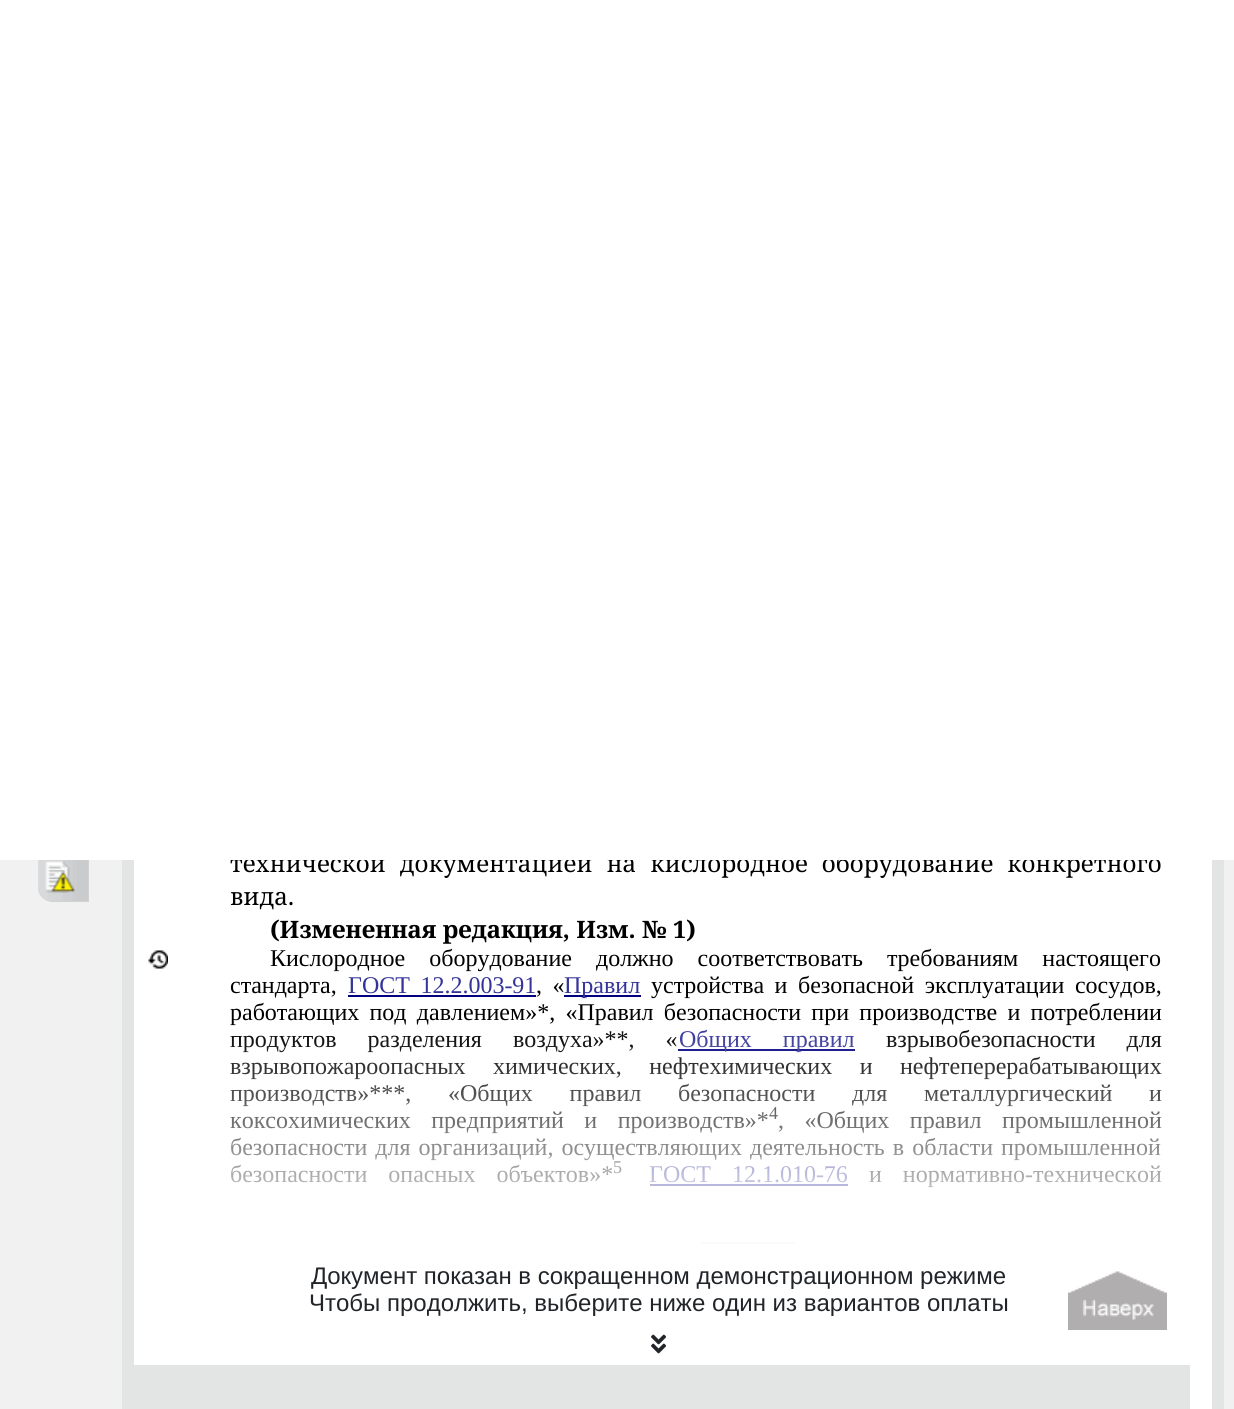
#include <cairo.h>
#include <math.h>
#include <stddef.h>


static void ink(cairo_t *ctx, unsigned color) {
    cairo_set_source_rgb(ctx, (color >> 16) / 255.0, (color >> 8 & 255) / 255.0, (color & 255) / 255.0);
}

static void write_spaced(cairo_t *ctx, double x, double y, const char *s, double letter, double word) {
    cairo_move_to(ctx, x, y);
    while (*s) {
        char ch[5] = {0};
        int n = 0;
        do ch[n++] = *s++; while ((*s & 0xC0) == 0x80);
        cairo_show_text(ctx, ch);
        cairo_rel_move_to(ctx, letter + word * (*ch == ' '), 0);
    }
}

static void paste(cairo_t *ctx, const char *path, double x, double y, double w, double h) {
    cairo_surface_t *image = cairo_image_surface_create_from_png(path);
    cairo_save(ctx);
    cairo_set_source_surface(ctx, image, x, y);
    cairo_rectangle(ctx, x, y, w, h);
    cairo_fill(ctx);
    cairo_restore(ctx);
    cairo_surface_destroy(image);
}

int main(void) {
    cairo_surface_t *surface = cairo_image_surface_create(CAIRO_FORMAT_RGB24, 1234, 1409);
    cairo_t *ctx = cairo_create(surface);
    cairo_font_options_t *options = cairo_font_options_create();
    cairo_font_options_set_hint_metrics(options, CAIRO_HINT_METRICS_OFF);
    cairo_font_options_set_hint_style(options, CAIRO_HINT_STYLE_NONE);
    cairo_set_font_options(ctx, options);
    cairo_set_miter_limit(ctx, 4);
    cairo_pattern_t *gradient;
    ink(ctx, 0xF1F1F1);
    cairo_paint(ctx);
    ink(ctx, 0xD1D1CF);
    cairo_new_path(ctx);
    cairo_move_to(ctx, 38, 629);
    cairo_line_to(ctx, 89, 629);
    cairo_line_to(ctx, 89, 902);
    cairo_line_to(ctx, 53, 902);
    cairo_curve_to(ctx, 44.5, 902, 38, 895.5, 38, 887);
    cairo_close_path(ctx);
    cairo_fill(ctx);
    ink(ctx, 0xFFFFFF);
    cairo_rectangle(ctx, 134, 860, 1078, 549);
    cairo_fill(ctx);
    cairo_rectangle(ctx, 128, -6, 1090, 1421);
    ink(ctx, 0xE3E5E4);
    cairo_set_line_width(ctx, 12);
    cairo_stroke(ctx);
    cairo_select_font_face(ctx, "Noto Serif", CAIRO_FONT_SLANT_NORMAL, CAIRO_FONT_WEIGHT_NORMAL);
    cairo_set_font_size(ctx, 24);
    ink(ctx, 0x000000);
    write_spaced(ctx, 230, 872, "технической документацией на кислородное оборудование конкретного", 0, 7.75);
    ink(ctx, 0xFFFFFF);
    cairo_rectangle(ctx, 0, 0, 1234, 860);
    cairo_fill(ctx);
    paste(ctx, "media/1.png", 38, 860, 50, 41);
    paste(ctx, "media/2.png", 45, 861, 31, 32);
    ink(ctx, 0x000000);
    cairo_move_to(ctx, 230, 905);
    cairo_show_text(ctx, "вида.");
    cairo_select_font_face(ctx, "Noto Serif", CAIRO_FONT_SLANT_NORMAL, CAIRO_FONT_WEIGHT_BOLD);
    cairo_move_to(ctx, 270, 938);
    cairo_show_text(ctx, "(Измененная редакция, Изм. № 1)");
    paste(ctx, "media/3.png", 148, 950, 20, 19);
    cairo_select_font_face(ctx, "Liberation Serif", CAIRO_FONT_SLANT_NORMAL, CAIRO_FONT_WEIGHT_NORMAL);
    write_spaced(ctx, 270, 966, "Кислородное оборудование должно соответствовать требованиям настоящего", 0, 18);
    cairo_move_to(ctx, 230, 993);
    cairo_show_text(ctx, "стандарта,");
    ink(ctx, 0x333399);
    write_spaced(ctx, 348, 993, "ГОСТ 12.2.003-91", 0, 4.5);
    ink(ctx, 0x000080);
    cairo_rectangle(ctx, 348, 995, 188, 2);
    cairo_fill(ctx);
    ink(ctx, 0x000000);
    write_spaced(ctx, 536, 993, ", «", 0, 4.5);
    ink(ctx, 0x000080);
    cairo_rectangle(ctx, 564, 995, 77, 2);
    cairo_fill(ctx);
    ink(ctx, 0x333399);
    cairo_move_to(ctx, 564, 993);
    cairo_show_text(ctx, "Правил");
    ink(ctx, 0x000000);
    write_spaced(ctx, 651, 993, "устройства и безопасной эксплуатации сосудов,", 0, 4.5);
    write_spaced(ctx, 230, 1020, "работающих под давлением»*, «Правил безопасности при производстве и потреблении", 0, 4.25);
    write_spaced(ctx, 230, 1047, "продуктов разделения воздуха»**, «", 0, 25);
    ink(ctx, 0x000080);
    cairo_rectangle(ctx, 678, 1049, 177, 2);
    cairo_fill(ctx);
    ink(ctx, 0x333399);
    write_spaced(ctx, 679, 1047, "Общих правил", 0, 25);
    ink(ctx, 0x000000);
    write_spaced(ctx, 886, 1047, "взрывобезопасности для", 0, 25);
    write_spaced(ctx, 230, 1074, "взрывопожароопасных химических, нефтехимических и нефтеперерабатывающих", 0, 21.5);
    write_spaced(ctx, 230, 1101, "производств»***, «Общих правил безопасности для металлургический и", 0, 30.75);
    write_spaced(ctx, 230, 1128, "коксохимических предприятий и производств»*", 0, 14.5);
    cairo_set_font_size(ctx, 18);
    cairo_move_to(ctx, 769, 1119);
    cairo_show_text(ctx, "4");
    cairo_set_font_size(ctx, 24);
    write_spaced(ctx, 778, 1128, ", «Общих правил промышленной", 0, 14.5);
    write_spaced(ctx, 230, 1155, "безопасности для организаций, осуществляющих деятельность в области промышленной", 0, 2);
    write_spaced(ctx, 230, 1182, "безопасности опасных объектов»*", 0, 15);
    cairo_set_font_size(ctx, 18);
    cairo_move_to(ctx, 613, 1173);
    cairo_show_text(ctx, "5");
    cairo_set_font_size(ctx, 24);
    ink(ctx, 0x333399);
    write_spaced(ctx, 649, 1182, "ГОСТ 12.1.010-76", 0, 15);
    ink(ctx, 0x000080);
    cairo_rectangle(ctx, 650, 1184, 198, 2);
    cairo_fill(ctx);
    ink(ctx, 0x000000);
    write_spaced(ctx, 869, 1182, "и нормативно-технической", 0, 15);
    ink(ctx, 0x000080);
    cairo_rectangle(ctx, 701, 1242, 94, 2);
    cairo_fill(ctx);
    gradient = cairo_pattern_create_linear(659, 1023, 659, 1248);
    cairo_pattern_add_color_stop_rgba(gradient, 0, 1, 1, 1, 0);
    cairo_pattern_add_color_stop_rgba(gradient, 1, 1, 1, 1, 1);
    cairo_set_source(ctx, gradient);
    cairo_pattern_destroy(gradient);
    cairo_rectangle(ctx, 230, 1030, 932, 214);
    cairo_fill(ctx);
    cairo_select_font_face(ctx, "Liberation Sans", CAIRO_FONT_SLANT_NORMAL, CAIRO_FONT_WEIGHT_NORMAL);
    ink(ctx, 0x212529);
    cairo_move_to(ctx, 311, 1284);
    cairo_show_text(ctx, "Документ показан в сокращенном демонстрационном режиме");
    cairo_move_to(ctx, 309, 1311);
    cairo_show_text(ctx, "Чтобы продолжить, выберите ниже один из вариантов оплаты");
    paste(ctx, "media/4.png", 651, 1334, 15, 20);
    paste(ctx, "media/5.png", 1068, 1271, 99, 59);
    ink(ctx, 0xE3E5E4);
    cairo_rectangle(ctx, 134, 1365, 1056, 44);
    cairo_fill(ctx);
    cairo_surface_write_to_png(surface, "image.png");
    cairo_font_options_destroy(options);
    cairo_destroy(ctx);
    cairo_surface_destroy(surface);
    return 0;
}
